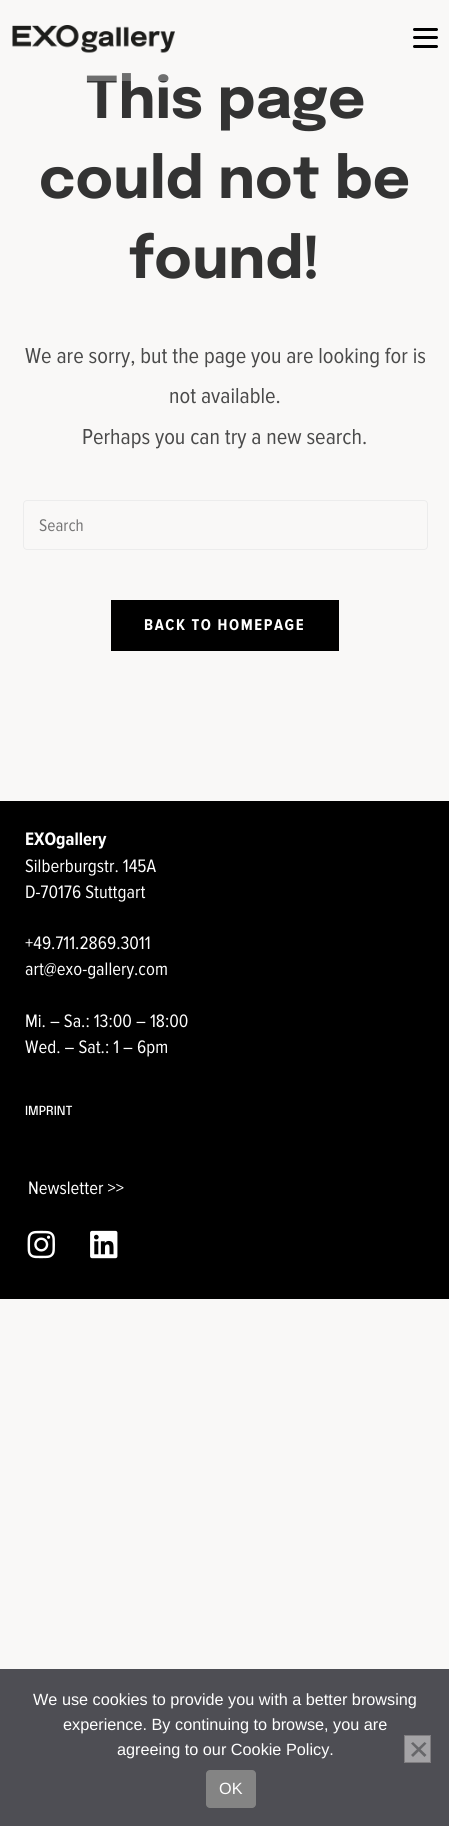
#include <cairo.h>
#include <math.h>
#include <stddef.h>

typedef struct { double x, y; const char *s; } line_t;

static void ink(cairo_t *ctx, unsigned color) {
    cairo_set_source_rgb(ctx, (color >> 16) / 255.0, (color >> 8 & 255) / 255.0, (color & 255) / 255.0);
}

static void write_spaced(cairo_t *ctx, double x, double y, const char *s, double letter, double word) {
    cairo_move_to(ctx, x, y);
    while (*s) {
        char ch[5] = {0};
        int n = 0;
        do ch[n++] = *s++; while ((*s & 0xC0) == 0x80);
        cairo_show_text(ctx, ch);
        cairo_rel_move_to(ctx, letter + word * (*ch == ' '), 0);
    }
}

static void round_path(cairo_t *ctx, double x, double y, double w, double h, double r) {
    cairo_new_sub_path(ctx);
    cairo_arc(ctx, x + w - r, y + h - r, r, 0, M_PI / 2);
    cairo_arc(ctx, x + r, y + h - r, r, M_PI / 2, M_PI);
    cairo_arc(ctx, x + r, y + r, r, M_PI, 1.5 * M_PI);
    cairo_arc(ctx, x + w - r, y + r, r, 1.5 * M_PI, 2 * M_PI);
    cairo_close_path(ctx);
}

static void paste(cairo_t *ctx, const char *path, double x, double y, double w, double h) {
    cairo_surface_t *image = cairo_image_surface_create_from_png(path);
    cairo_save(ctx);
    cairo_set_source_surface(ctx, image, x, y);
    cairo_rectangle(ctx, x, y, w, h);
    cairo_fill(ctx);
    cairo_restore(ctx);
    cairo_surface_destroy(image);
}

int main(void) {
    cairo_surface_t *surface = cairo_image_surface_create(CAIRO_FORMAT_RGB24, 449, 1826);
    cairo_t *ctx = cairo_create(surface);
    cairo_font_options_t *options = cairo_font_options_create();
    cairo_font_options_set_hint_metrics(options, CAIRO_HINT_METRICS_OFF);
    cairo_font_options_set_hint_style(options, CAIRO_HINT_STYLE_NONE);
    cairo_set_font_options(ctx, options);
    cairo_set_miter_limit(ctx, 4);
    ink(ctx, 0xF9F8F7);
    cairo_paint(ctx);
    cairo_select_font_face(ctx, "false", CAIRO_FONT_SLANT_NORMAL, CAIRO_FONT_WEIGHT_BOLD);
    cairo_set_font_size(ctx, 57.5);
    ink(ctx, 0x333333);
    cairo_move_to(ctx, 85, 118);
    cairo_show_text(ctx, "This page");
    cairo_set_source_rgba(ctx, 0.976, 0.973, 0.969, 0.3);
    cairo_rectangle(ctx, 86, 73, 83, 8);
    cairo_fill(ctx);
    paste(ctx, "media/1.png", 12, 25, 163, 28);
    ink(ctx, 0x000000);
    round_path(ctx, 413, 45, 25, 3, 1.5);
    cairo_fill(ctx);
    round_path(ctx, 413, 28, 25, 3, 1.5);
    cairo_fill(ctx);
    round_path(ctx, 413, 36, 25, 3, 1.5);
    cairo_fill(ctx);
    ink(ctx, 0x333333);
    cairo_move_to(ctx, 39, 198);
    cairo_show_text(ctx, "could not be");
    cairo_move_to(ctx, 129, 278);
    cairo_show_text(ctx, "found!");
    cairo_select_font_face(ctx, "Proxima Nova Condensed", CAIRO_FONT_SLANT_NORMAL, CAIRO_FONT_WEIGHT_NORMAL);
    cairo_set_font_size(ctx, 22.5);
    ink(ctx, 0x4A4A4A);
    {
        static const line_t items[] = {
            {25, 363, "We are sorry, but the page you are looking for is"},
            {169, 403, "not available."},
            {82, 444, "Perhaps you can try a new search."},
        };
        for (size_t i = 0; i < sizeof items / sizeof *items; i++) {
            cairo_move_to(ctx, items[i].x, items[i].y);
            cairo_show_text(ctx, items[i].s);
        }
    }
    round_path(ctx, 23.5, 500.5, 404, 49, 3.5);
    ink(ctx, 0xECECEC);
    cairo_set_line_width(ctx, 1);
    cairo_stroke(ctx);
    cairo_set_font_size(ctx, 17.5);
    ink(ctx, 0x757575);
    cairo_move_to(ctx, 39, 531);
    cairo_show_text(ctx, "Search");
    ink(ctx, 0x000000);
    cairo_rectangle(ctx, 111, 600, 228, 51);
    cairo_fill(ctx);
    cairo_select_font_face(ctx, "Proxima Nova Condensed", CAIRO_FONT_SLANT_NORMAL, CAIRO_FONT_WEIGHT_BOLD);
    cairo_set_font_size(ctx, 16.25);
    ink(ctx, 0xFFFFFF);
    write_spaced(ctx, 144, 630, "BACK TO HOMEPAGE", 1.6, 0);
    ink(ctx, 0x000000);
    cairo_rectangle(ctx, 0, 801, 449, 498);
    cairo_fill(ctx);
    cairo_set_font_size(ctx, 18.75);
    ink(ctx, 0xFFFFFF);
    cairo_move_to(ctx, 25, 845);
    cairo_show_text(ctx, "EXOgallery");
    cairo_select_font_face(ctx, "Proxima Nova Condensed", CAIRO_FONT_SLANT_NORMAL, CAIRO_FONT_WEIGHT_NORMAL);
    {
        static const line_t items[] = {
            {25, 872, "Silberburgstr. 145A"},
            {25, 898, "D-70176 Stuttgart"},
            {25, 949, "+49.711.2869.3011"},
            {25, 975, "art@exo-gallery.com"},
            {25, 1027, "Mi. – Sa.: 13:00 – 18:00"},
            {25, 1053, "Wed. – Sat.: 1 – 6pm"},
        };
        for (size_t i = 0; i < sizeof items / sizeof *items; i++) {
            cairo_move_to(ctx, items[i].x, items[i].y);
            cairo_show_text(ctx, items[i].s);
        }
    }
    cairo_select_font_face(ctx, "Epilogue Medium", CAIRO_FONT_SLANT_NORMAL, CAIRO_FONT_WEIGHT_NORMAL);
    cairo_set_font_size(ctx, 12.5);
    cairo_move_to(ctx, 25, 1115);
    cairo_show_text(ctx, "IMPRINT");
    cairo_select_font_face(ctx, "Proxima Nova Condensed", CAIRO_FONT_SLANT_NORMAL, CAIRO_FONT_WEIGHT_NORMAL);
    cairo_set_font_size(ctx, 18.75);
    cairo_move_to(ctx, 28, 1194);
    cairo_show_text(ctx, "Newsletter >>");
    paste(ctx, "media/2.png", 27, 1230, 28, 29);
    paste(ctx, "media/3.png", 90, 1230, 28, 29);
    ink(ctx, 0x4E4E54);
    cairo_rectangle(ctx, 0, 1669, 449, 157);
    cairo_fill(ctx);
    cairo_select_font_face(ctx, "Liberation Sans", CAIRO_FONT_SLANT_NORMAL, CAIRO_FONT_WEIGHT_NORMAL);
    cairo_set_font_size(ctx, 16.25);
    ink(ctx, 0xFFFFFF);
    {
        static const line_t items[] = {
            {33, 1705, "We use cookies to provide you with a better browsing"},
            {63, 1730, "experience. By continuing to browse, you are"},
            {117, 1755, "agreeing to our Cookie Policy."},
        };
        for (size_t i = 0; i < sizeof items / sizeof *items; i++) {
            cairo_move_to(ctx, items[i].x, items[i].y);
            cairo_show_text(ctx, items[i].s);
        }
    }
    ink(ctx, 0xA4A3A6);
    round_path(ctx, 404, 1735, 27, 28, 1);
    cairo_fill(ctx);
    round_path(ctx, 404.5, 1735.5, 26, 27, 0.5);
    cairo_set_source_rgba(ctx, 0.459, 0.447, 0.459, 0.77);
    cairo_stroke(ctx);
    ink(ctx, 0x67676A);
    cairo_new_path(ctx);
    cairo_move_to(ctx, 424.5, 1742);
    cairo_line_to(ctx, 426.5, 1743.5);
    cairo_line_to(ctx, 413, 1757);
    cairo_line_to(ctx, 411, 1755);
    cairo_close_path(ctx);
    cairo_fill(ctx);
    cairo_new_path(ctx);
    cairo_move_to(ctx, 411, 1743.5);
    cairo_line_to(ctx, 413, 1742);
    cairo_line_to(ctx, 426.5, 1755);
    cairo_line_to(ctx, 424.5, 1757);
    cairo_close_path(ctx);
    cairo_fill(ctx);
    ink(ctx, 0x848484);
    round_path(ctx, 206, 1770, 50, 38, 4);
    cairo_fill(ctx);
    ink(ctx, 0xFFFFFF);
    cairo_move_to(ctx, 219, 1794);
    cairo_show_text(ctx, "OK");
    cairo_surface_write_to_png(surface, "image.png");
    cairo_font_options_destroy(options);
    cairo_destroy(ctx);
    cairo_surface_destroy(surface);
    return 0;
}
